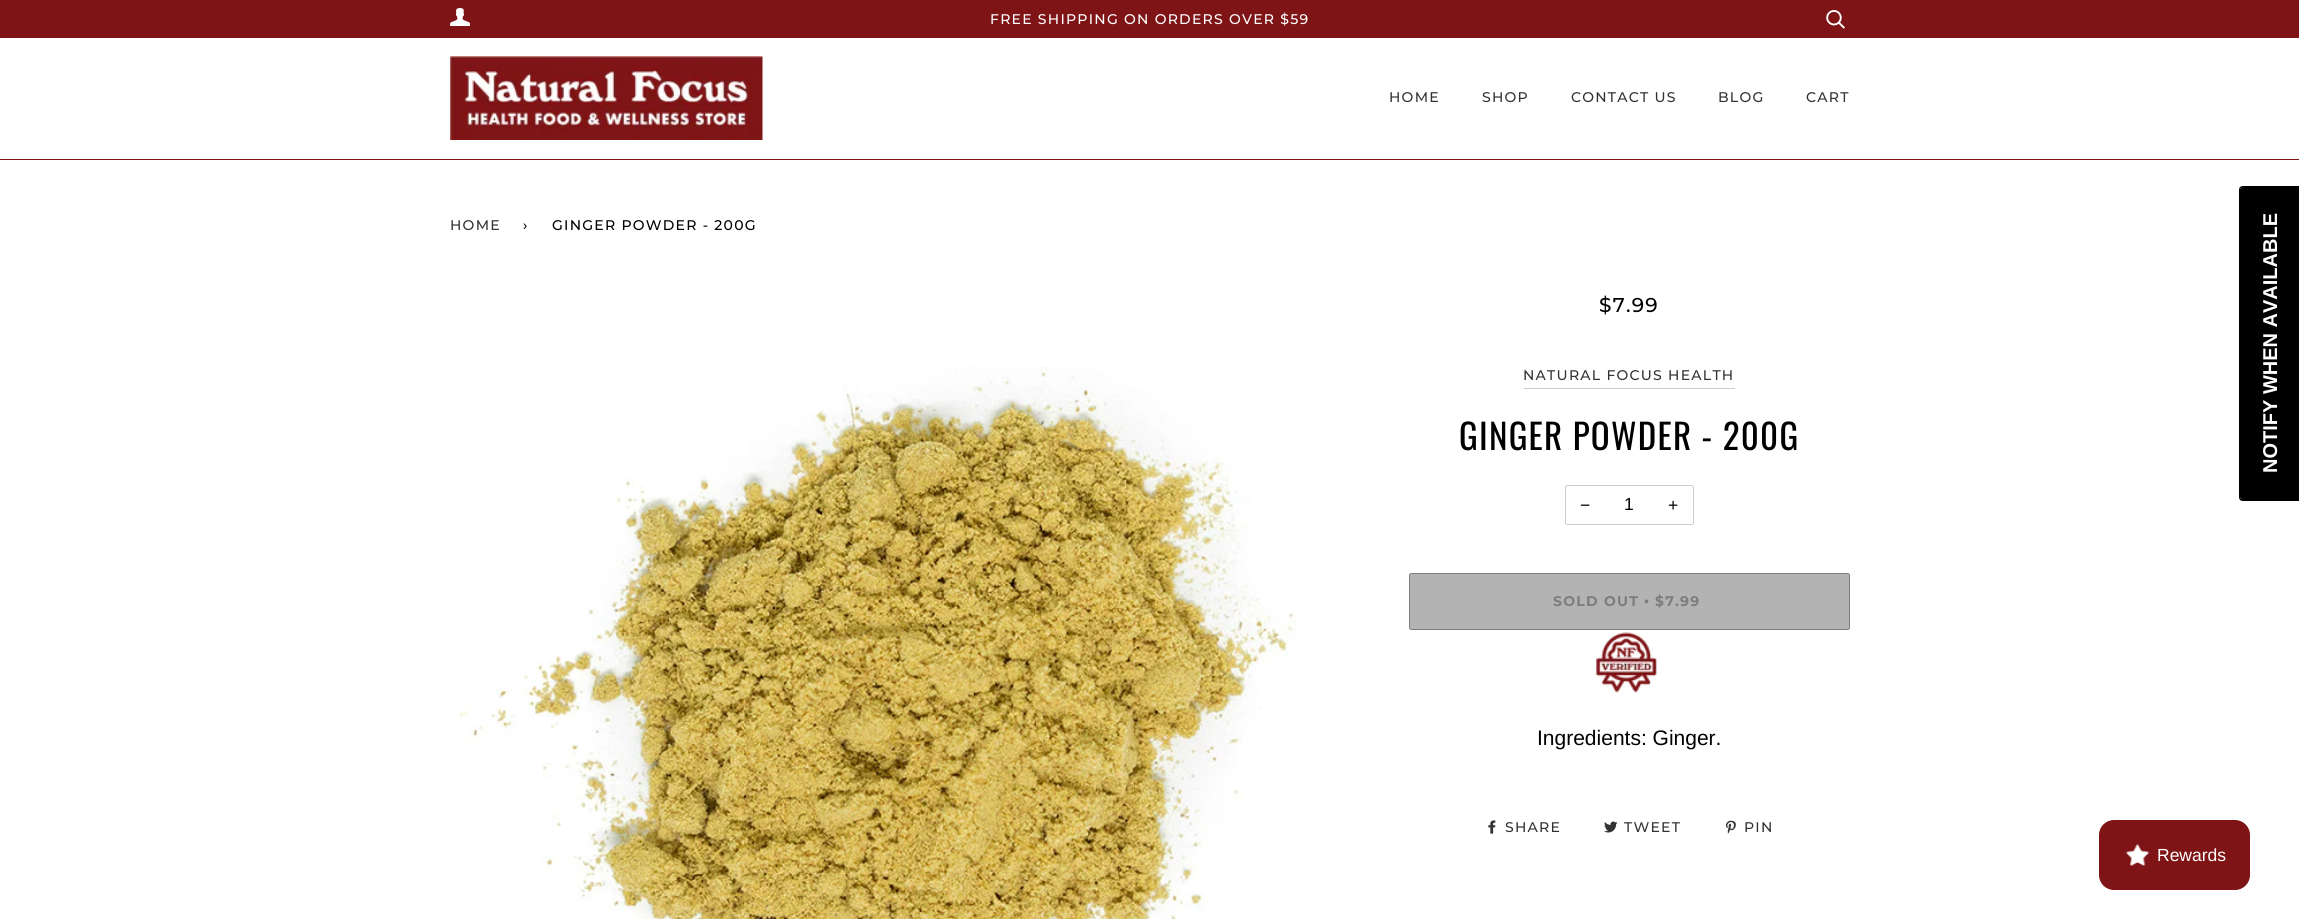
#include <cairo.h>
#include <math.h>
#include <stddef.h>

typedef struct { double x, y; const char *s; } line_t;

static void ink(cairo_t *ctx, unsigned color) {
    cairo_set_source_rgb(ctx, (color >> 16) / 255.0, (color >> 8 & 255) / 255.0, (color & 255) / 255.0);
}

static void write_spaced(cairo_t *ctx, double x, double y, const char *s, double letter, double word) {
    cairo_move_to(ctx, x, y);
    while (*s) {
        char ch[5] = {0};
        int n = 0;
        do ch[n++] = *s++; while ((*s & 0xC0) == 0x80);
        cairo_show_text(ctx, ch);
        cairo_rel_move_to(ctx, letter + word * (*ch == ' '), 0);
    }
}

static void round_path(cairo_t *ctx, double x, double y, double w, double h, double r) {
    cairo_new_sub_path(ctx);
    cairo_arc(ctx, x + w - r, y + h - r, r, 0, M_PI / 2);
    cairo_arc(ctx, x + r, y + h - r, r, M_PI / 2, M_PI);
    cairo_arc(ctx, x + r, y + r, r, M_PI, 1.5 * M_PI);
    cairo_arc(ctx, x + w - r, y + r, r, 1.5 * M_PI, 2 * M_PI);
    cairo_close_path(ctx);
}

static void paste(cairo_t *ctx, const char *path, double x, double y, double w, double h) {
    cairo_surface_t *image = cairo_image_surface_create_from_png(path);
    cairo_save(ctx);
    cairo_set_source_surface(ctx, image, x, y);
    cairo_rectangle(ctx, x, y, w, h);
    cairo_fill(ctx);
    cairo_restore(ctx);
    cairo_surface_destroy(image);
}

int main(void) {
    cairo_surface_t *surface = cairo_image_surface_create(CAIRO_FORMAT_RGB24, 2299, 919);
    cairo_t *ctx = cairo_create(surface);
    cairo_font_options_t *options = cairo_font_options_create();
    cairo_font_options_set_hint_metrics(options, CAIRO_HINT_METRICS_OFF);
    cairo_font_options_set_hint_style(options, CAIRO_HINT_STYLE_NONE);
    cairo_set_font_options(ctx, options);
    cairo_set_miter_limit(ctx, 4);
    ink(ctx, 0xFFFFFF);
    cairo_paint(ctx);
    ink(ctx, 0x7F1416);
    cairo_rectangle(ctx, 0, 0, 2299, 38);
    cairo_fill(ctx);
    paste(ctx, "media/1.png", 450, 8, 20, 18);
    cairo_select_font_face(ctx, "Montserrat Medium", CAIRO_FONT_SLANT_NORMAL, CAIRO_FONT_WEIGHT_NORMAL);
    cairo_set_font_size(ctx, 14);
    ink(ctx, 0xFFFFFF);
    write_spaced(ctx, 990, 24, "FREE SHIPPING ON ORDERS OVER $59", 1.25, 0);
    paste(ctx, "media/2.png", 1826, 10, 19, 19);
    ink(ctx, 0x7F1416);
    cairo_rectangle(ctx, 0, 159, 2299, 1);
    cairo_fill(ctx);
    paste(ctx, "media/3.png", 450, 56, 313, 84);
    ink(ctx, 0x333333);
    {
        static const line_t items[] = {
            {1389, 102, "HOME"},
            {1482, 102, "SHOP"},
            {1571, 102, "CONTACT US"},
            {1718, 102, "BLOG"},
            {1806, 102, "CART"},
            {450, 230, "HOME"},
        };
        for (size_t i = 0; i < sizeof items / sizeof *items; i++) {
            write_spaced(ctx, items[i].x, items[i].y, items[i].s, 1.25, 0);
        }
    }
    ink(ctx, 0x000000);
    write_spaced(ctx, 523, 230, "›", 1.25, 0);
    write_spaced(ctx, 552, 230, "GINGER POWDER - 200G", 1.25, 0);
    paste(ctx, "media/4.png", 458, 366, 839, 553);
    cairo_set_font_size(ctx, 20);
    write_spaced(ctx, 1599, 312, "$7.99", 1.25, 0);
    cairo_set_font_size(ctx, 14);
    ink(ctx, 0x333333);
    write_spaced(ctx, 1523, 380, "NATURAL FOCUS HEALTH", 1.25, 0);
    ink(ctx, 0xCCCCCC);
    cairo_rectangle(ctx, 1524, 388, 211, 1);
    cairo_fill(ctx);
    cairo_select_font_face(ctx, "Oswald", CAIRO_FONT_SLANT_NORMAL, CAIRO_FONT_WEIGHT_NORMAL);
    cairo_set_font_size(ctx, 35);
    ink(ctx, 0x000000);
    write_spaced(ctx, 1459, 450, "GINGER POWDER - 200G", 1.25, 0);
    round_path(ctx, 1565.5, 485.5, 128, 39, 2);
    ink(ctx, 0xCCCCCC);
    cairo_set_line_width(ctx, 1);
    cairo_stroke(ctx);
    cairo_select_font_face(ctx, "Liberation Sans", CAIRO_FONT_SLANT_NORMAL, CAIRO_FONT_WEIGHT_NORMAL);
    cairo_set_font_size(ctx, 17.5);
    ink(ctx, 0x000000);
    cairo_move_to(ctx, 1580, 511);
    cairo_show_text(ctx, "−");
    cairo_select_font_face(ctx, "Arimo", CAIRO_FONT_SLANT_NORMAL, CAIRO_FONT_WEIGHT_NORMAL);
    cairo_move_to(ctx, 1624, 510);
    cairo_show_text(ctx, "1");
    cairo_move_to(ctx, 1668, 511);
    cairo_show_text(ctx, "+");
    ink(ctx, 0xB3B3B3);
    round_path(ctx, 1409, 573, 441, 57, 2.5);
    cairo_fill(ctx);
    round_path(ctx, 1409.5, 573.5, 440, 56, 2);
    cairo_set_source_rgba(ctx, 0, 0, 0, 0.3);
    cairo_stroke(ctx);
    cairo_select_font_face(ctx, "Montserrat", CAIRO_FONT_SLANT_NORMAL, CAIRO_FONT_WEIGHT_BOLD);
    cairo_set_font_size(ctx, 14);
    ink(ctx, 0x7D7D7D);
    write_spaced(ctx, 1553, 606, "SOLD OUT", 1.25, 0);
    cairo_select_font_face(ctx, "Liberation Serif", CAIRO_FONT_SLANT_NORMAL, CAIRO_FONT_WEIGHT_BOLD);
    write_spaced(ctx, 1644, 606, "•", 1.25, 0);
    cairo_select_font_face(ctx, "Montserrat", CAIRO_FONT_SLANT_NORMAL, CAIRO_FONT_WEIGHT_BOLD);
    write_spaced(ctx, 1655, 606, "$7.99", 1.25, 0);
    paste(ctx, "media/5.png", 1596, 632, 61, 61);
    cairo_select_font_face(ctx, "Arimo", CAIRO_FONT_SLANT_NORMAL, CAIRO_FONT_WEIGHT_NORMAL);
    cairo_set_font_size(ctx, 21);
    ink(ctx, 0x000000);
    cairo_move_to(ctx, 1537, 745);
    cairo_show_text(ctx, "Ingredients: Ginger.");
    paste(ctx, "media/6.png", 1488, 820, 8, 14);
    cairo_select_font_face(ctx, "Montserrat Medium", CAIRO_FONT_SLANT_NORMAL, CAIRO_FONT_WEIGHT_NORMAL);
    cairo_set_font_size(ctx, 14);
    ink(ctx, 0x333333);
    write_spaced(ctx, 1505, 832, "SHARE", 1.25, 0);
    paste(ctx, "media/7.png", 1604, 821, 14, 12);
    write_spaced(ctx, 1624, 832, "TWEET", 1.25, 0);
    paste(ctx, "media/8.png", 1726, 820, 10, 14);
    write_spaced(ctx, 1744, 832, "PIN", 1.25, 0);
    ink(ctx, 0x000000);
    cairo_new_path(ctx);
    cairo_move_to(ctx, 2240, 497);
    cairo_line_to(ctx, 2240, 190);
    cairo_curve_to(ctx, 2240, 189, 2241, 187, 2243, 187);
    cairo_line_to(ctx, 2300, 187);
    cairo_line_to(ctx, 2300, 499);
    cairo_line_to(ctx, 2243, 499);
    cairo_curve_to(ctx, 2241, 499, 2240, 498, 2240, 497);
    cairo_close_path(ctx);
    cairo_fill(ctx);
    cairo_set_fill_rule(ctx, CAIRO_FILL_RULE_EVEN_ODD);
    cairo_new_path(ctx);
    cairo_move_to(ctx, 2239, 497);
    cairo_line_to(ctx, 2239, 190);
    cairo_curve_to(ctx, 2239, 188, 2240, 186, 2243, 186);
    cairo_line_to(ctx, 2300, 186);
    cairo_line_to(ctx, 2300, 501);
    cairo_line_to(ctx, 2243, 501);
    cairo_curve_to(ctx, 2240, 501, 2239, 499, 2239, 497);
    cairo_close_path(ctx);
    cairo_move_to(ctx, 2240, 497);
    cairo_line_to(ctx, 2240, 190);
    cairo_curve_to(ctx, 2240, 189, 2241, 187, 2243, 187);
    cairo_line_to(ctx, 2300, 187);
    cairo_line_to(ctx, 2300, 499);
    cairo_line_to(ctx, 2243, 499);
    cairo_curve_to(ctx, 2241, 499, 2240, 498, 2240, 497);
    cairo_close_path(ctx);
    cairo_fill(ctx);
    cairo_select_font_face(ctx, "Liberation Sans", CAIRO_FONT_SLANT_NORMAL, CAIRO_FONT_WEIGHT_BOLD);
    cairo_set_font_size(ctx, 20);
    ink(ctx, 0xFFFFFF);
    cairo_save(ctx);
    cairo_translate(ctx, 2277, 473);
    cairo_rotate(ctx, -90 * M_PI / 180);
    cairo_move_to(ctx, 0, 0);
    cairo_show_text(ctx, "NOTIFY WHEN AVAILABLE");
    cairo_restore(ctx);
    ink(ctx, 0x7F1416);
    round_path(ctx, 2099, 820, 151, 70, 15);
    cairo_fill(ctx);
    paste(ctx, "media/9.png", 2126, 844, 24, 22);
    cairo_select_font_face(ctx, "Arimo", CAIRO_FONT_SLANT_NORMAL, CAIRO_FONT_WEIGHT_NORMAL);
    cairo_set_font_size(ctx, 17.5);
    ink(ctx, 0xFFFFFF);
    cairo_move_to(ctx, 2157, 861);
    cairo_show_text(ctx, "Rewards");
    cairo_surface_write_to_png(surface, "image.png");
    cairo_font_options_destroy(options);
    cairo_destroy(ctx);
    cairo_surface_destroy(surface);
    return 0;
}
